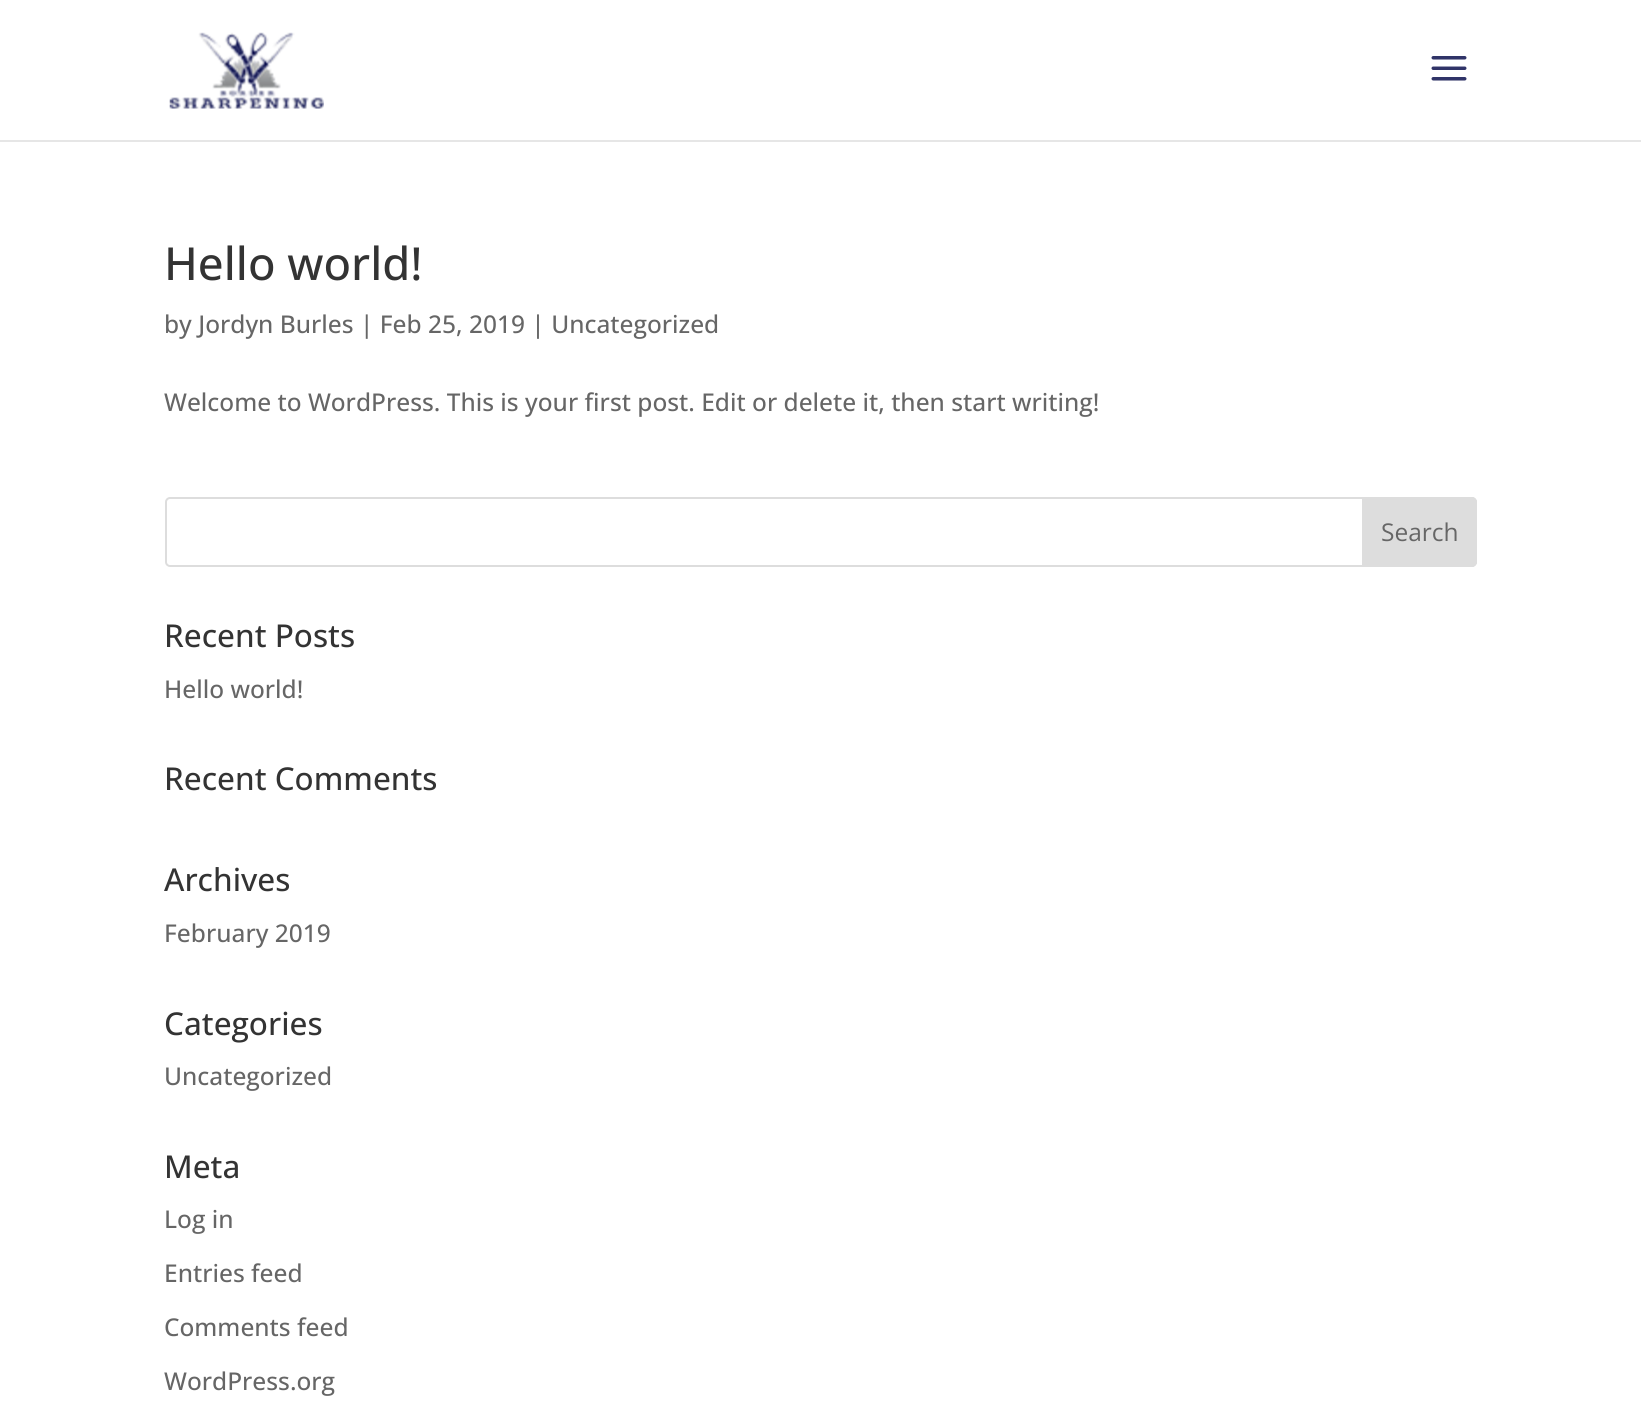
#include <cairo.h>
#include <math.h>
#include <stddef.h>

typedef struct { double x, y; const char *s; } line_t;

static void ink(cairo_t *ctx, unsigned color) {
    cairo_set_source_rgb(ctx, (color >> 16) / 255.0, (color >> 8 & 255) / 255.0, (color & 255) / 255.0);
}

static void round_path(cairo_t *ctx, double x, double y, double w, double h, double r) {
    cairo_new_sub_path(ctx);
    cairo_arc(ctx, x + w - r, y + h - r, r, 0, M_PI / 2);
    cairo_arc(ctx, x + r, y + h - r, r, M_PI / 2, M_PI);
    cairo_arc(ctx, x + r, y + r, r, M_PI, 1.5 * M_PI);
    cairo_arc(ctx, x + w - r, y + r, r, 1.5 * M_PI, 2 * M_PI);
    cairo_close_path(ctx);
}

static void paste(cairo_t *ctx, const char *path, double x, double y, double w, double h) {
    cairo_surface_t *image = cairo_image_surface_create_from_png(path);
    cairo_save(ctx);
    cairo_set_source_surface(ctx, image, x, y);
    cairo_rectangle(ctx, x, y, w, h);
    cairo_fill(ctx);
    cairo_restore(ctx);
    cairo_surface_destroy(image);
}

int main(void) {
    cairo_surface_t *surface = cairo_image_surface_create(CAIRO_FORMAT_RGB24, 1641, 1427);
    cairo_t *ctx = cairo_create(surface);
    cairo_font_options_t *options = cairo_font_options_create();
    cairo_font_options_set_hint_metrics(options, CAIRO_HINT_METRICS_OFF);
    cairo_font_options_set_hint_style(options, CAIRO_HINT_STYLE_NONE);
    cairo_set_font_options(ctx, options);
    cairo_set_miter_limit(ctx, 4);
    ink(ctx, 0xFFFFFF);
    cairo_paint(ctx);
    ink(ctx, 0xE6E6E6);
    cairo_new_path(ctx);
    cairo_move_to(ctx, 0, 140);
    cairo_line_to(ctx, 0, 142);
    cairo_line_to(ctx, 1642, 142);
    cairo_line_to(ctx, 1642, 2);
    cairo_line_to(ctx, 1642, 140);
    cairo_close_path(ctx);
    cairo_fill(ctx);
    paste(ctx, "media/1.png", 169, 32, 155, 77);
    paste(ctx, "media/2.png", 1431, 56, 36, 25);
    cairo_select_font_face(ctx, "Open Sans Medium", CAIRO_FONT_SLANT_NORMAL, CAIRO_FONT_WEIGHT_NORMAL);
    cairo_set_font_size(ctx, 45.5);
    ink(ctx, 0x333333);
    cairo_move_to(ctx, 164, 280);
    cairo_show_text(ctx, "Hello world!");
    cairo_set_font_size(ctx, 24.5);
    ink(ctx, 0x666666);
    cairo_move_to(ctx, 164, 333);
    cairo_show_text(ctx, "by Jordyn Burles | Feb 25, 2019 | Uncategorized");
    cairo_move_to(ctx, 164, 411);
    cairo_show_text(ctx, "Welcome to WordPress. This is your first post. Edit or delete it, then start writing!");
    round_path(ctx, 166, 498, 1310, 68, 4);
    ink(ctx, 0xDDDDDD);
    cairo_stroke(ctx);
    cairo_new_path(ctx);
    cairo_move_to(ctx, 1363, 498);
    cairo_line_to(ctx, 1472, 498);
    cairo_curve_to(ctx, 1474, 498, 1476, 500, 1476, 502);
    cairo_line_to(ctx, 1476, 562);
    cairo_curve_to(ctx, 1476, 564, 1474, 566, 1472, 566);
    cairo_line_to(ctx, 1363, 566);
    cairo_close_path(ctx);
    cairo_fill_preserve(ctx);
    cairo_stroke(ctx);
    cairo_select_font_face(ctx, "Open Sans", CAIRO_FONT_SLANT_NORMAL, CAIRO_FONT_WEIGHT_NORMAL);
    ink(ctx, 0x666666);
    cairo_move_to(ctx, 1381, 541);
    cairo_show_text(ctx, "Search");
    cairo_select_font_face(ctx, "Open Sans Medium", CAIRO_FONT_SLANT_NORMAL, CAIRO_FONT_WEIGHT_NORMAL);
    cairo_set_font_size(ctx, 31.5);
    ink(ctx, 0x333333);
    cairo_move_to(ctx, 164, 647);
    cairo_show_text(ctx, "Recent Posts");
    cairo_set_font_size(ctx, 24.5);
    ink(ctx, 0x666666);
    cairo_move_to(ctx, 164, 698);
    cairo_show_text(ctx, "Hello world!");
    cairo_set_font_size(ctx, 31.5);
    ink(ctx, 0x333333);
    cairo_move_to(ctx, 164, 790);
    cairo_show_text(ctx, "Recent Comments");
    cairo_move_to(ctx, 164, 891);
    cairo_show_text(ctx, "Archives");
    cairo_set_font_size(ctx, 24.5);
    ink(ctx, 0x666666);
    cairo_move_to(ctx, 164, 942);
    cairo_show_text(ctx, "February 2019");
    cairo_set_font_size(ctx, 31.5);
    ink(ctx, 0x333333);
    cairo_move_to(ctx, 164, 1035);
    cairo_show_text(ctx, "Categories");
    cairo_set_font_size(ctx, 24.5);
    ink(ctx, 0x666666);
    cairo_move_to(ctx, 164, 1085);
    cairo_show_text(ctx, "Uncategorized");
    cairo_set_font_size(ctx, 31.5);
    ink(ctx, 0x333333);
    cairo_move_to(ctx, 164, 1178);
    cairo_show_text(ctx, "Meta");
    cairo_set_font_size(ctx, 24.5);
    ink(ctx, 0x666666);
    {
        static const line_t items[] = {
            {164, 1228, "Log in"},
            {164, 1282, "Entries feed"},
            {164, 1336, "Comments feed"},
            {164, 1390, "WordPress.org"},
        };
        for (size_t i = 0; i < sizeof items / sizeof *items; i++) {
            cairo_move_to(ctx, items[i].x, items[i].y);
            cairo_show_text(ctx, items[i].s);
        }
    }
    cairo_surface_write_to_png(surface, "image.png");
    cairo_font_options_destroy(options);
    cairo_destroy(ctx);
    cairo_surface_destroy(surface);
    return 0;
}
